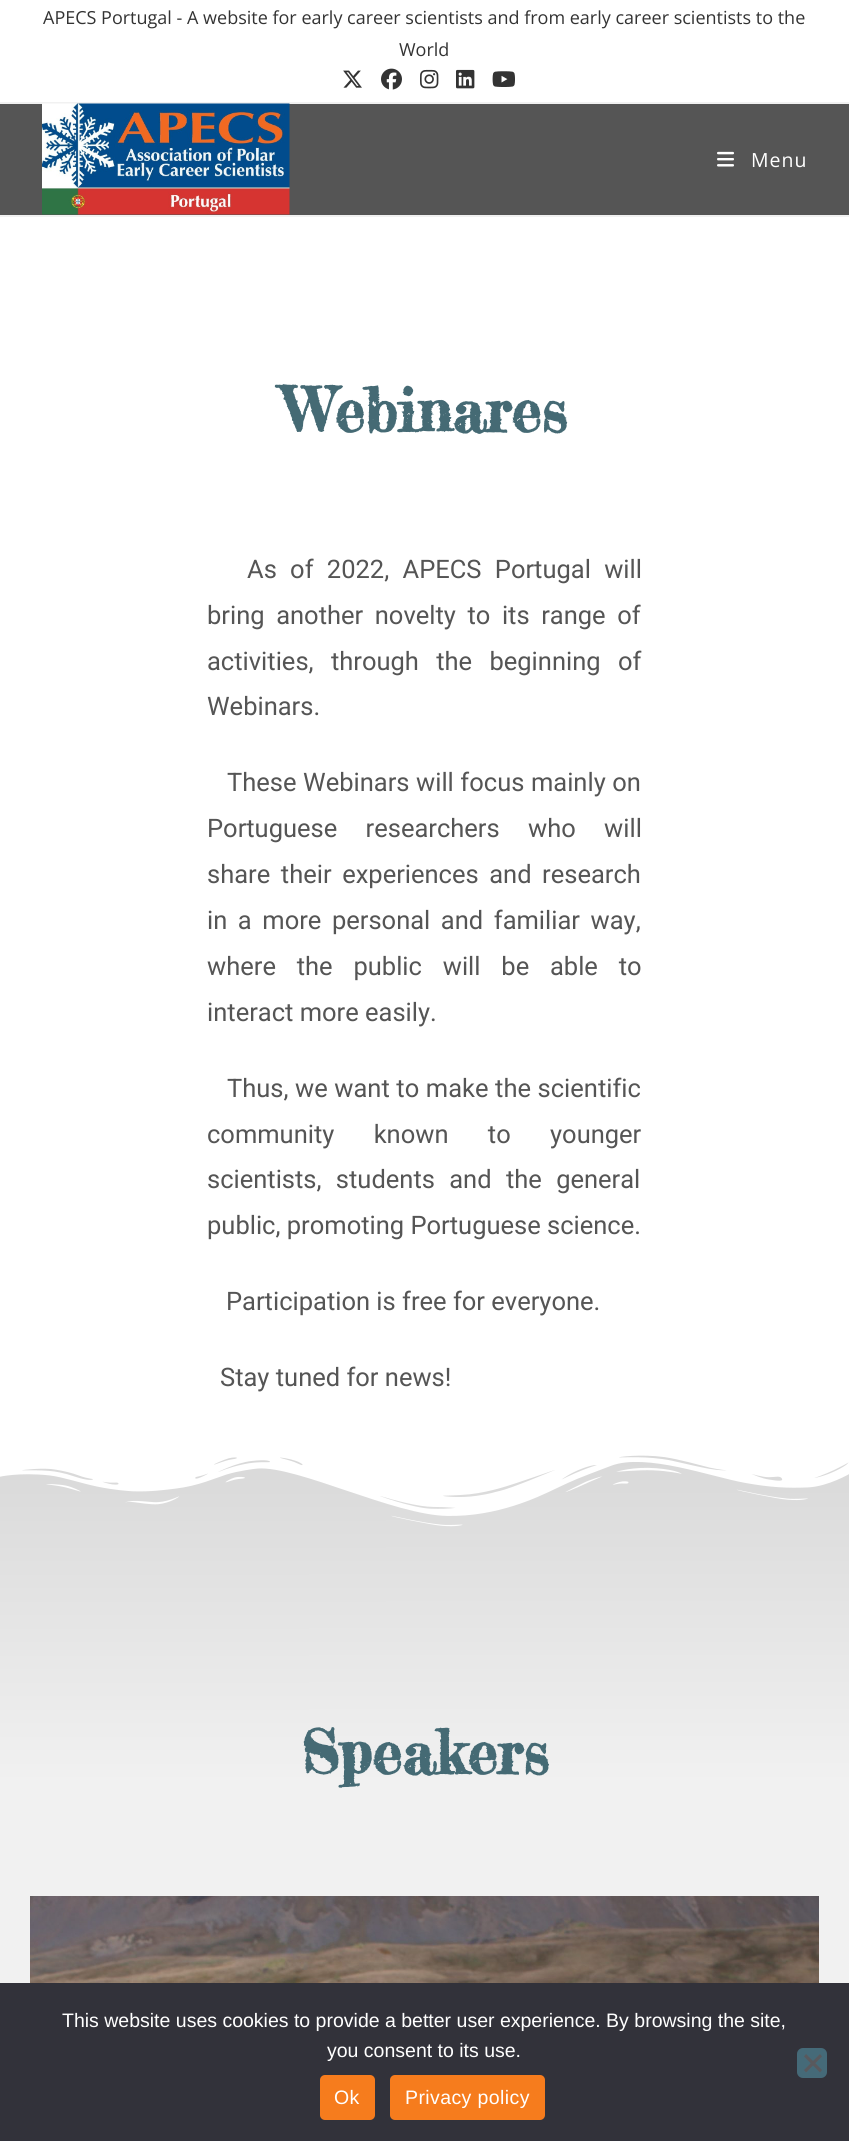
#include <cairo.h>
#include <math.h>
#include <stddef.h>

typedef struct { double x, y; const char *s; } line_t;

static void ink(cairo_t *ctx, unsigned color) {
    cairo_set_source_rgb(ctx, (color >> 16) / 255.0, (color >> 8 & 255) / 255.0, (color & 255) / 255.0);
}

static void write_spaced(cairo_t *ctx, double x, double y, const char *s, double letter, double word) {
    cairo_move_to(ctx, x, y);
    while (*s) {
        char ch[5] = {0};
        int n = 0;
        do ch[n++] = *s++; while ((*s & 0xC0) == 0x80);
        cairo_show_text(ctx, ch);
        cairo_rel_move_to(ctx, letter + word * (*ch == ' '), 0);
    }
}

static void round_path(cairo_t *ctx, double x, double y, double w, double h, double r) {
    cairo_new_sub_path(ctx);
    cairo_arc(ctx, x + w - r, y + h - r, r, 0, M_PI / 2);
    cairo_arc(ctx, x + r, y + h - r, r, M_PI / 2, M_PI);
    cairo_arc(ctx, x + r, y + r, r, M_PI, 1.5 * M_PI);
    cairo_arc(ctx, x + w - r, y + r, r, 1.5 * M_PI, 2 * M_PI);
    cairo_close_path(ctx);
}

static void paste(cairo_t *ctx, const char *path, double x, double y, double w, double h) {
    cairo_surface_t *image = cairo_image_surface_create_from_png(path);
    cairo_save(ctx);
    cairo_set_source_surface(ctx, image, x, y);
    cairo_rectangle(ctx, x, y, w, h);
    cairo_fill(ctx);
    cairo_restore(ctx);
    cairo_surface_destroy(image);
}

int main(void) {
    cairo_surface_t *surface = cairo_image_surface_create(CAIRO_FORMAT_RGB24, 849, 2141);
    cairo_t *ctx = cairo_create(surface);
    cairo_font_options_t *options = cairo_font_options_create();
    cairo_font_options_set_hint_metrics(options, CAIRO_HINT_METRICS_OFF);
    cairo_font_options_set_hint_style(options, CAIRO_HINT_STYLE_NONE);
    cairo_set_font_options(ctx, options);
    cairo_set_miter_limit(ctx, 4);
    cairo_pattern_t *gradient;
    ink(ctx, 0xFFFFFF);
    cairo_paint(ctx);
    ink(ctx, 0xF1F1F1);
    cairo_rectangle(ctx, 0, 102, 849, 2);
    cairo_fill(ctx);
    cairo_select_font_face(ctx, "Open Sans", CAIRO_FONT_SLANT_NORMAL, CAIRO_FONT_WEIGHT_NORMAL);
    cairo_set_font_size(ctx, 18);
    ink(ctx, 0x333333);
    cairo_move_to(ctx, 43, 24);
    cairo_show_text(ctx, "APECS Portugal - A website for early career scientists and from early career scientists to the");
    cairo_move_to(ctx, 399, 56);
    cairo_show_text(ctx, "World");
    paste(ctx, "media/1.png", 343, 70, 19, 18);
    paste(ctx, "media/2.png", 381, 68, 21, 22);
    paste(ctx, "media/3.png", 420, 69, 19, 20);
    paste(ctx, "media/4.png", 456, 69, 19, 20);
    paste(ctx, "media/5.png", 492, 71, 23, 16);
    ink(ctx, 0x555555);
    cairo_rectangle(ctx, 0, 104, 849, 111);
    cairo_fill(ctx);
    ink(ctx, 0xF1F1F1);
    cairo_rectangle(ctx, 0, 215, 849, 2);
    cairo_fill(ctx);
    paste(ctx, "media/6.png", 42, 103, 248, 112);
    paste(ctx, "media/7.png", 717, 151, 17, 16);
    cairo_set_font_size(ctx, 19.5);
    ink(ctx, 0xFFFFFF);
    write_spaced(ctx, 751, 167, "Menu", 1, 0);
    cairo_select_font_face(ctx, "Fredericka the Great", CAIRO_FONT_SLANT_NORMAL, CAIRO_FONT_WEIGHT_BOLD);
    cairo_set_font_size(ctx, 60);
    ink(ctx, 0x456A74);
    cairo_move_to(ctx, 282, 432);
    cairo_show_text(ctx, "Webinares");
    cairo_select_font_face(ctx, "Roboto", CAIRO_FONT_SLANT_NORMAL, CAIRO_FONT_WEIGHT_NORMAL);
    cairo_set_font_size(ctx, 25.5);
    ink(ctx, 0x555555);
    write_spaced(ctx, 247, 578, "As of 2022, APECS Portugal will", 0, 7);
    write_spaced(ctx, 207, 624, "bring another novelty to its range of", 0, 5.25);
    write_spaced(ctx, 207, 670, "activities, through the beginning of", 0, 11);
    cairo_move_to(ctx, 207, 715);
    cairo_show_text(ctx, "Webinars.");
    write_spaced(ctx, 227, 791, "These Webinars will focus mainly on", 0, 0.25);
    write_spaced(ctx, 207, 837, "Portuguese researchers who will", 0, 22);
    write_spaced(ctx, 207, 883, "share their experiences and research", 0, 4.25);
    write_spaced(ctx, 207, 929, "in a more personal and familiar way,", 0, 4.25);
    write_spaced(ctx, 207, 975, "where the public will be able to", 0, 14.5);
    cairo_move_to(ctx, 207, 1021);
    cairo_show_text(ctx, "interact more easily.");
    write_spaced(ctx, 227, 1097, "Thus, we want to make the scientific", 0, 0.25);
    write_spaced(ctx, 207, 1143, "community known to younger", 0, 33);
    write_spaced(ctx, 207, 1188, "scientists, students and the general", 0, 8);
    {
        static const line_t items[] = {
            {207, 1234, "public, promoting Portuguese science."},
            {226, 1310, "Participation is free for everyone."},
            {220, 1386, "Stay tuned for news!"},
        };
        for (size_t i = 0; i < sizeof items / sizeof *items; i++) {
            cairo_move_to(ctx, items[i].x, items[i].y);
            cairo_show_text(ctx, items[i].s);
        }
    }
    gradient = cairo_pattern_create_linear(424, 1446, 425, 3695);
    cairo_pattern_add_color_stop_rgba(gradient, 0, 0.847, 0.847, 0.847, 1);
    cairo_pattern_add_color_stop_rgba(gradient, 0.15, 0.945, 0.945, 0.945, 1);
    cairo_set_source(ctx, gradient);
    cairo_pattern_destroy(gradient);
    cairo_rectangle(ctx, 0, 1455, 849, 528);
    cairo_fill(ctx);
    paste(ctx, "media/8.png", 0, 1446, 849, 81);
    cairo_select_font_face(ctx, "Fredericka the Great", CAIRO_FONT_SLANT_NORMAL, CAIRO_FONT_WEIGHT_BOLD);
    cairo_set_font_size(ctx, 60);
    ink(ctx, 0x456A74);
    cairo_move_to(ctx, 301, 1774);
    cairo_show_text(ctx, "Speakers");
    paste(ctx, "media/9.png", 30, 1896, 789, 87);
    ink(ctx, 0x32323A);
    cairo_rectangle(ctx, 0, 1983, 849, 158);
    cairo_fill(ctx);
    cairo_select_font_face(ctx, "Liberation Sans", CAIRO_FONT_SLANT_NORMAL, CAIRO_FONT_WEIGHT_NORMAL);
    cairo_set_font_size(ctx, 19.5);
    ink(ctx, 0xFFFFFF);
    cairo_move_to(ctx, 62, 2027);
    cairo_show_text(ctx, "This website uses cookies to provide a better user experience. By browsing the site,");
    cairo_move_to(ctx, 327, 2057);
    cairo_show_text(ctx, "you consent to its use.");
    ink(ctx, 0x456A78);
    round_path(ctx, 797, 2048, 30, 30, 6);
    cairo_fill(ctx);
    ink(ctx, 0x59595D);
    cairo_new_path(ctx);
    cairo_move_to(ctx, 820, 2054);
    cairo_line_to(ctx, 822, 2056.5);
    cairo_line_to(ctx, 806, 2072.5);
    cairo_line_to(ctx, 804, 2070);
    cairo_close_path(ctx);
    cairo_fill(ctx);
    cairo_new_path(ctx);
    cairo_move_to(ctx, 804, 2056.5);
    cairo_line_to(ctx, 806, 2054);
    cairo_line_to(ctx, 822, 2070);
    cairo_line_to(ctx, 820, 2072.5);
    cairo_close_path(ctx);
    cairo_fill(ctx);
    ink(ctx, 0xF67C1D);
    round_path(ctx, 320, 2075, 55, 45, 5);
    cairo_fill(ctx);
    ink(ctx, 0xFFFFFF);
    write_spaced(ctx, 334, 2104, "Ok", 0.4, 0);
    ink(ctx, 0xF67C1D);
    round_path(ctx, 390, 2075, 155, 45, 5);
    cairo_fill(ctx);
    ink(ctx, 0xFFFFFF);
    write_spaced(ctx, 405, 2104, "Privacy policy", 0.4, 0);
    cairo_surface_write_to_png(surface, "image.png");
    cairo_font_options_destroy(options);
    cairo_destroy(ctx);
    cairo_surface_destroy(surface);
    return 0;
}
